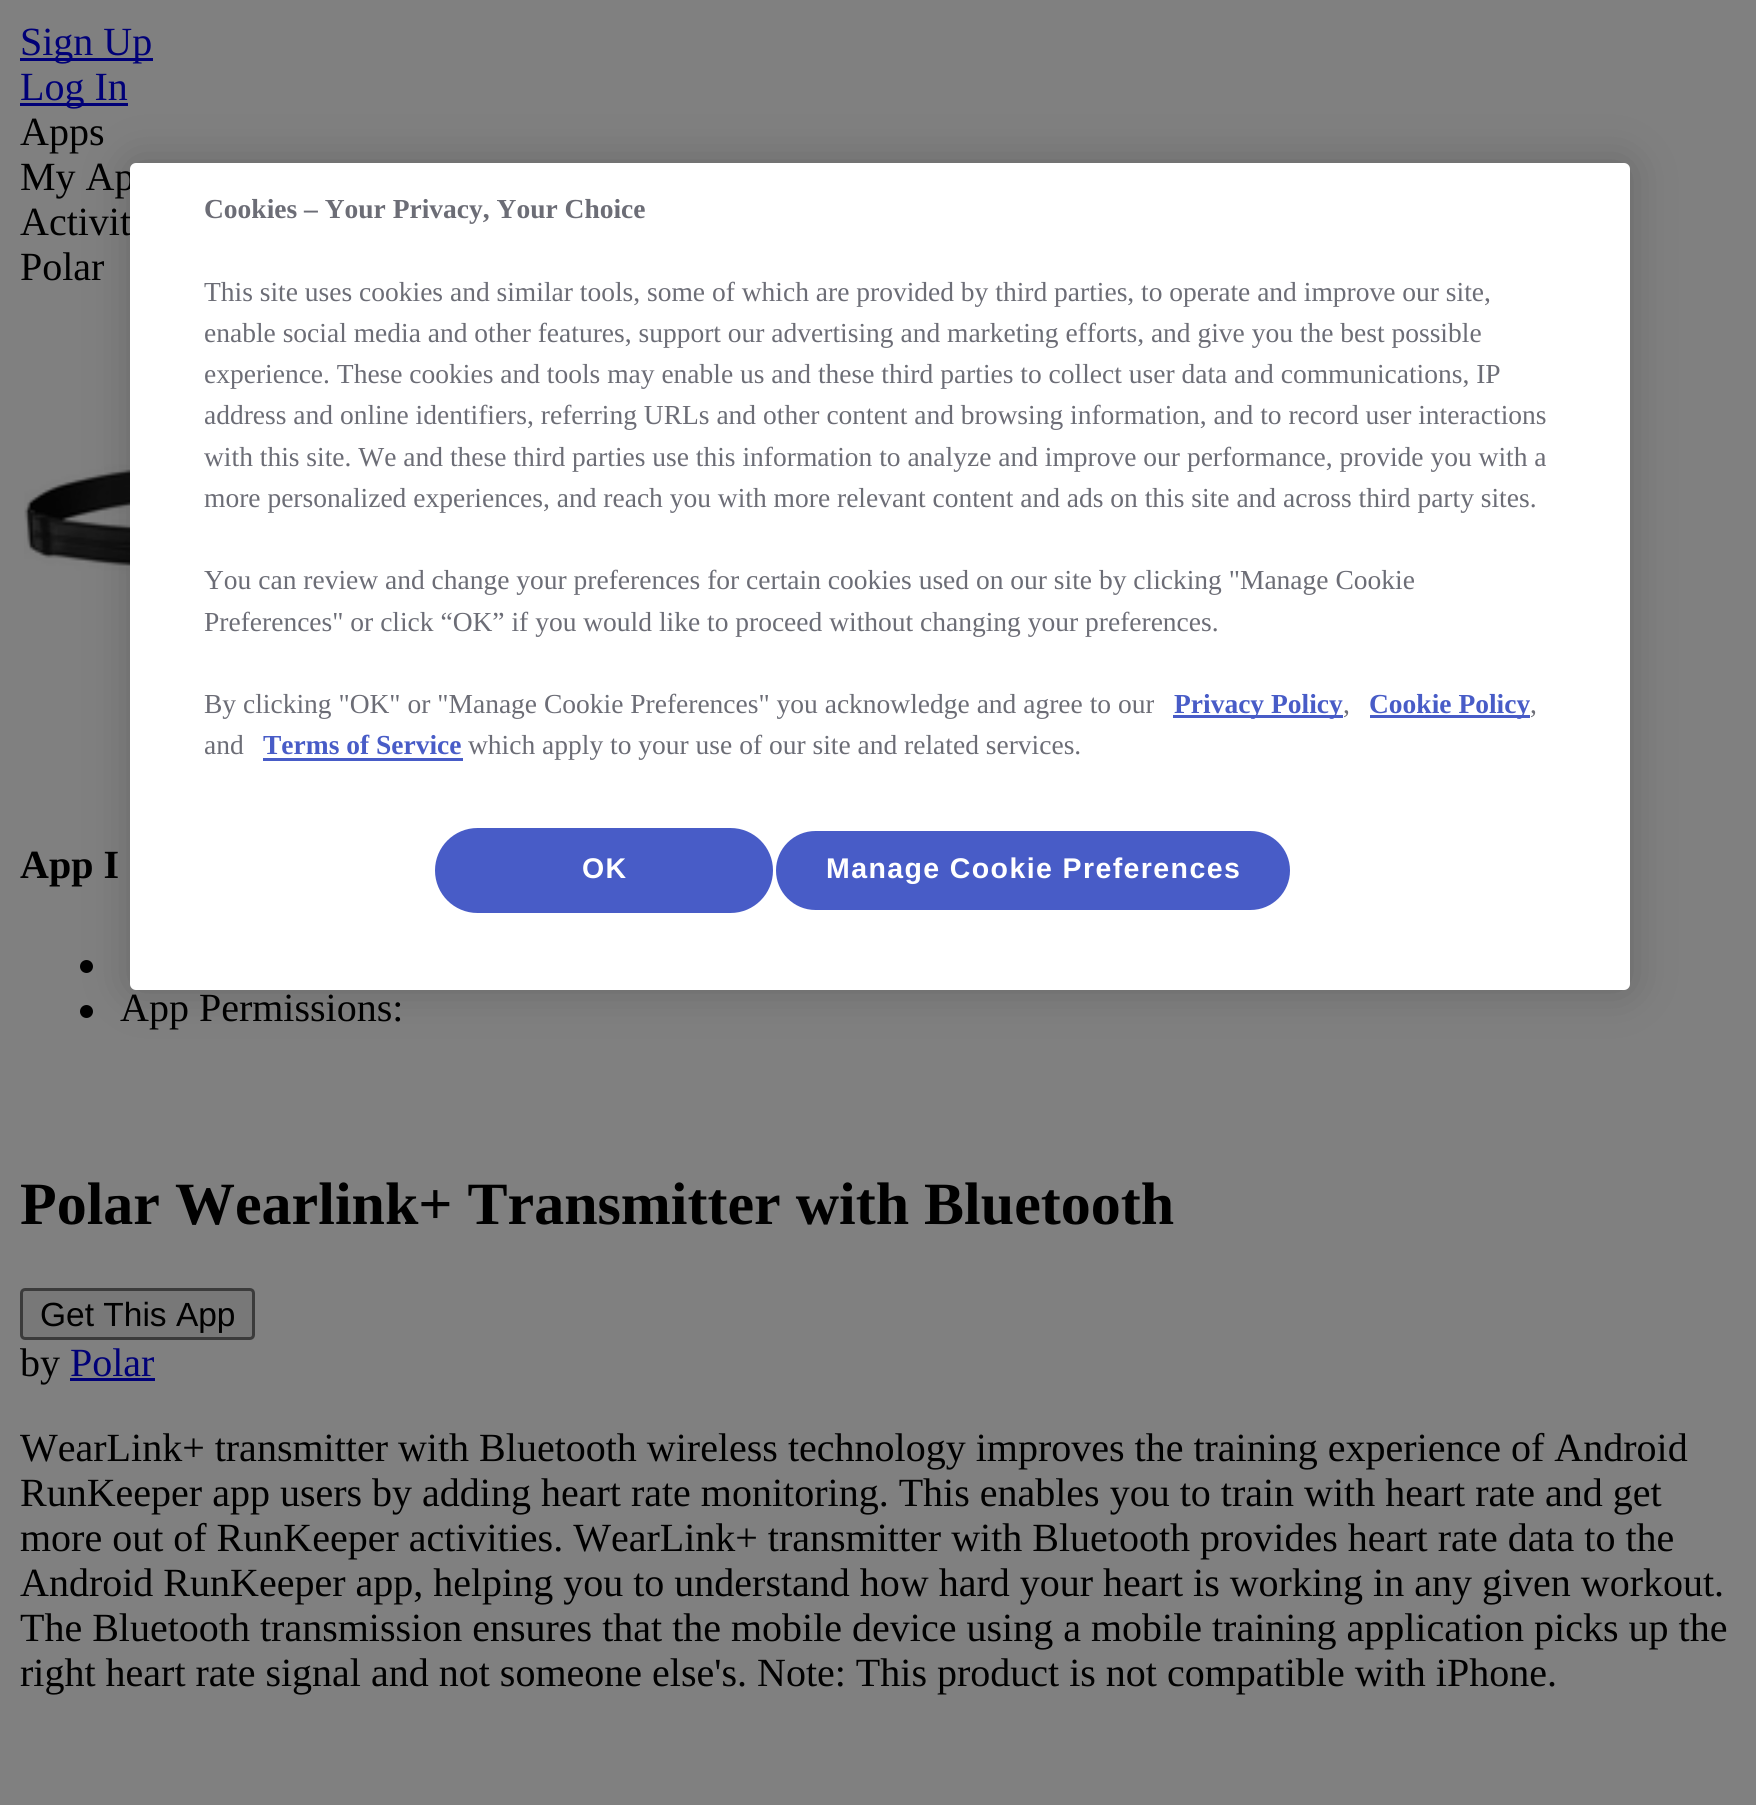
#include <cairo.h>
#include <math.h>
#include <stddef.h>

typedef struct { double x, y; const char *s; } line_t;

static void ink(cairo_t *ctx, unsigned color) {
    cairo_set_source_rgb(ctx, (color >> 16) / 255.0, (color >> 8 & 255) / 255.0, (color & 255) / 255.0);
}

static void write_spaced(cairo_t *ctx, double x, double y, const char *s, double letter, double word) {
    cairo_move_to(ctx, x, y);
    while (*s) {
        char ch[5] = {0};
        int n = 0;
        do ch[n++] = *s++; while ((*s & 0xC0) == 0x80);
        cairo_show_text(ctx, ch);
        cairo_rel_move_to(ctx, letter + word * (*ch == ' '), 0);
    }
}

static void round_path(cairo_t *ctx, double x, double y, double w, double h, double r) {
    cairo_new_sub_path(ctx);
    cairo_arc(ctx, x + w - r, y + h - r, r, 0, M_PI / 2);
    cairo_arc(ctx, x + r, y + h - r, r, M_PI / 2, M_PI);
    cairo_arc(ctx, x + r, y + r, r, M_PI, 1.5 * M_PI);
    cairo_arc(ctx, x + w - r, y + r, r, 1.5 * M_PI, 2 * M_PI);
    cairo_close_path(ctx);
}

static void blur_box(cairo_t *ctx, double x, double y, double w, double h, double r, double blur, double alpha) {
    cairo_push_group_with_content(ctx, CAIRO_CONTENT_ALPHA);
    cairo_set_operator(ctx, CAIRO_OPERATOR_SOURCE);
    for (int i = 15; i >= -15 && fmin(w, h) + blur * i / 3 > 0; i -= 2) {
        double e = blur * i / 6;
        cairo_set_source_rgba(ctx, 0, 0, 0, alpha * erfc((i - 1) / 8.5) / 2);
        round_path(ctx, x - e, y - e, w + 2 * e, h + 2 * e, fmax(0, fmin(r + e + blur * .6, fmin(w, h) / 2 + e)));
        cairo_fill(ctx);
    }
    cairo_pattern_t *soft = cairo_pop_group(ctx);
    cairo_mask(ctx, soft);
    cairo_pattern_destroy(soft);
}

static void paste(cairo_t *ctx, const char *path, double x, double y, double w, double h) {
    cairo_surface_t *image = cairo_image_surface_create_from_png(path);
    cairo_save(ctx);
    cairo_set_source_surface(ctx, image, x, y);
    cairo_rectangle(ctx, x, y, w, h);
    cairo_fill(ctx);
    cairo_restore(ctx);
    cairo_surface_destroy(image);
}

int main(void) {
    cairo_surface_t *surface = cairo_image_surface_create(CAIRO_FORMAT_RGB24, 1756, 1805);
    cairo_t *ctx = cairo_create(surface);
    cairo_font_options_t *options = cairo_font_options_create();
    cairo_font_options_set_hint_metrics(options, CAIRO_HINT_METRICS_OFF);
    cairo_font_options_set_hint_style(options, CAIRO_HINT_STYLE_NONE);
    cairo_set_font_options(ctx, options);
    cairo_set_miter_limit(ctx, 4);
    ink(ctx, 0x808080);
    cairo_paint(ctx);
    ink(ctx, 0x000077);
    cairo_rectangle(ctx, 20, 58, 133, 3);
    cairo_fill(ctx);
    cairo_select_font_face(ctx, "Liberation Serif", CAIRO_FONT_SLANT_NORMAL, CAIRO_FONT_WEIGHT_NORMAL);
    cairo_set_font_size(ctx, 40);
    cairo_move_to(ctx, 20, 55);
    cairo_show_text(ctx, "Sign Up");
    cairo_rectangle(ctx, 20, 103, 108, 3);
    cairo_fill(ctx);
    cairo_move_to(ctx, 20, 100);
    cairo_show_text(ctx, "Log In");
    ink(ctx, 0x000000);
    {
        static const line_t items[] = {
            {20, 145, "Apps"},
            {20, 190, "My Ap"},
            {20, 235, "Activit"},
            {20, 280, "Polar"},
        };
        for (size_t i = 0; i < sizeof items / sizeof *items; i++) {
            cairo_move_to(ctx, items[i].x, items[i].y);
            cairo_show_text(ctx, items[i].s);
        }
    }
    paste(ctx, "media/1.png", 24, 462, 106, 119);
    cairo_select_font_face(ctx, "Liberation Serif", CAIRO_FONT_SLANT_NORMAL, CAIRO_FONT_WEIGHT_BOLD);
    cairo_move_to(ctx, 20, 878);
    cairo_show_text(ctx, "App I");
    cairo_new_path(ctx);
    cairo_arc(ctx, 86.5, 966.5, 6.5, 0, 2 * M_PI);
    cairo_fill(ctx);
    cairo_arc(ctx, 86.5, 1011.5, 6.5, 0, 2 * M_PI);
    cairo_fill(ctx);
    cairo_select_font_face(ctx, "Liberation Serif", CAIRO_FONT_SLANT_NORMAL, CAIRO_FONT_WEIGHT_NORMAL);
    cairo_move_to(ctx, 120, 1021);
    cairo_show_text(ctx, "App Permissions:");
    cairo_select_font_face(ctx, "Liberation Serif", CAIRO_FONT_SLANT_NORMAL, CAIRO_FONT_WEIGHT_BOLD);
    cairo_set_font_size(ctx, 60);
    cairo_move_to(ctx, 20, 1224);
    cairo_show_text(ctx, "Polar Wearlink+ Transmitter with Bluetooth");
    ink(ctx, 0x787878);
    round_path(ctx, 21.5, 1289.5, 232, 49, 3.5);
    cairo_fill_preserve(ctx);
    ink(ctx, 0x3B3B3B);
    cairo_set_line_width(ctx, 3);
    cairo_stroke(ctx);
    cairo_select_font_face(ctx, "Liberation Sans", CAIRO_FONT_SLANT_NORMAL, CAIRO_FONT_WEIGHT_NORMAL);
    cairo_set_font_size(ctx, 33.5);
    ink(ctx, 0x000000);
    cairo_move_to(ctx, 40, 1326);
    cairo_show_text(ctx, "Get This App");
    cairo_select_font_face(ctx, "Liberation Serif", CAIRO_FONT_SLANT_NORMAL, CAIRO_FONT_WEIGHT_NORMAL);
    cairo_set_font_size(ctx, 40);
    cairo_move_to(ctx, 20, 1376);
    cairo_show_text(ctx, "by");
    ink(ctx, 0x000077);
    cairo_move_to(ctx, 70, 1376);
    cairo_show_text(ctx, "Polar");
    cairo_rectangle(ctx, 70, 1378, 85, 3);
    cairo_fill(ctx);
    ink(ctx, 0x000000);
    {
        static const line_t items[] = {
            {20, 1461, "WearLink+ transmitter with Bluetooth wireless technology improves the training experience of Android"},
            {20, 1506, "RunKeeper app users by adding heart rate monitoring. This enables you to train with heart rate and get"},
            {20, 1551, "more out of RunKeeper activities. WearLink+ transmitter with Bluetooth provides heart rate data to the"},
            {20, 1596, "Android RunKeeper app, helping you to understand how hard your heart is working in any given workout."},
            {20, 1641, "The Bluetooth transmission ensures that the mobile device using a mobile training application picks up the"},
            {20, 1686, "right heart rate signal and not someone else's. Note: This product is not compatible with iPhone."},
        };
        for (size_t i = 0; i < sizeof items / sizeof *items; i++) {
            cairo_move_to(ctx, items[i].x, items[i].y);
            cairo_show_text(ctx, items[i].s);
        }
    }
    ink(ctx, 0x000000);
    blur_box(ctx, 130, 163, 1500, 827, 6, 22.5, 0.2);
    ink(ctx, 0xFFFFFF);
    round_path(ctx, 130, 163, 1500, 827, 6);
    cairo_fill(ctx);
    cairo_select_font_face(ctx, "Liberation Serif", CAIRO_FONT_SLANT_NORMAL, CAIRO_FONT_WEIGHT_BOLD);
    cairo_set_font_size(ctx, 27.5);
    ink(ctx, 0x6C6D76);
    cairo_move_to(ctx, 204, 218);
    cairo_show_text(ctx, "Cookies – Your Privacy, Your Choice");
    cairo_select_font_face(ctx, "Liberation Serif", CAIRO_FONT_SLANT_NORMAL, CAIRO_FONT_WEIGHT_NORMAL);
    {
        static const line_t items[] = {
            {204, 301, "This site uses cookies and similar tools, some of which are provided by third parties, to operate and improve our site,"},
            {204, 342, "enable social media and other features, support our advertising and marketing efforts, and give you the best possible"},
            {204, 383, "experience. These cookies and tools may enable us and these third parties to collect user data and communications, IP"},
            {204, 424, "address and online identifiers, referring URLs and other content and browsing information, and to record user interactions"},
            {204, 466, "with this site. We and these third parties use this information to analyze and improve our performance, provide you with a"},
            {204, 507, "more personalized experiences, and reach you with more relevant content and ads on this site and across third party sites."},
            {204, 589, "You can review and change your preferences for certain cookies used on our site by clicking \"Manage Cookie"},
            {204, 631, "Preferences\" or click “OK” if you would like to proceed without changing your preferences."},
            {204, 713, "By clicking \"OK\" or \"Manage Cookie Preferences\" you acknowledge and agree to our"},
        };
        for (size_t i = 0; i < sizeof items / sizeof *items; i++) {
            cairo_move_to(ctx, items[i].x, items[i].y);
            cairo_show_text(ctx, items[i].s);
        }
    }
    ink(ctx, 0x485CC7);
    cairo_rectangle(ctx, 1173, 715, 170, 3);
    cairo_fill(ctx);
    cairo_select_font_face(ctx, "Liberation Serif", CAIRO_FONT_SLANT_NORMAL, CAIRO_FONT_WEIGHT_BOLD);
    cairo_move_to(ctx, 1174, 713);
    cairo_show_text(ctx, "Privacy Policy");
    cairo_select_font_face(ctx, "Liberation Serif", CAIRO_FONT_SLANT_NORMAL, CAIRO_FONT_WEIGHT_NORMAL);
    ink(ctx, 0x6C6D76);
    cairo_move_to(ctx, 1343, 713);
    cairo_show_text(ctx, ",");
    ink(ctx, 0x485CC7);
    cairo_rectangle(ctx, 1370, 715, 160, 3);
    cairo_fill(ctx);
    cairo_select_font_face(ctx, "Liberation Serif", CAIRO_FONT_SLANT_NORMAL, CAIRO_FONT_WEIGHT_BOLD);
    cairo_move_to(ctx, 1369, 713);
    cairo_show_text(ctx, "Cookie Policy");
    cairo_select_font_face(ctx, "Liberation Serif", CAIRO_FONT_SLANT_NORMAL, CAIRO_FONT_WEIGHT_NORMAL);
    ink(ctx, 0x6C6D76);
    cairo_move_to(ctx, 1530, 713);
    cairo_show_text(ctx, ",");
    cairo_move_to(ctx, 204, 754);
    cairo_show_text(ctx, "and");
    cairo_select_font_face(ctx, "Liberation Serif", CAIRO_FONT_SLANT_NORMAL, CAIRO_FONT_WEIGHT_BOLD);
    ink(ctx, 0x485CC7);
    cairo_move_to(ctx, 263, 754);
    cairo_show_text(ctx, "Terms of Service");
    cairo_rectangle(ctx, 263, 758, 200, 3);
    cairo_fill(ctx);
    cairo_select_font_face(ctx, "Liberation Serif", CAIRO_FONT_SLANT_NORMAL, CAIRO_FONT_WEIGHT_NORMAL);
    ink(ctx, 0x6C6D76);
    cairo_move_to(ctx, 468, 754);
    cairo_show_text(ctx, "which apply to your use of our site and related services.");
    ink(ctx, 0x485CC7);
    round_path(ctx, 436.5, 829.5, 335, 82, 41);
    cairo_fill_preserve(ctx);
    cairo_stroke(ctx);
    cairo_select_font_face(ctx, "Liberation Sans", CAIRO_FONT_SLANT_NORMAL, CAIRO_FONT_WEIGHT_BOLD);
    cairo_set_font_size(ctx, 28.5);
    ink(ctx, 0xFFFFFF);
    write_spaced(ctx, 582, 878, "OK", 1.4, 0);
    ink(ctx, 0x485CC7);
    round_path(ctx, 774.5, 829.5, 517, 82, 41);
    cairo_fill_preserve(ctx);
    ink(ctx, 0xFFFFFF);
    cairo_stroke(ctx);
    write_spaced(ctx, 826, 878, "Manage Cookie Preferences", 1.4, 0);
    cairo_surface_write_to_png(surface, "image.png");
    cairo_font_options_destroy(options);
    cairo_destroy(ctx);
    cairo_surface_destroy(surface);
    return 0;
}
